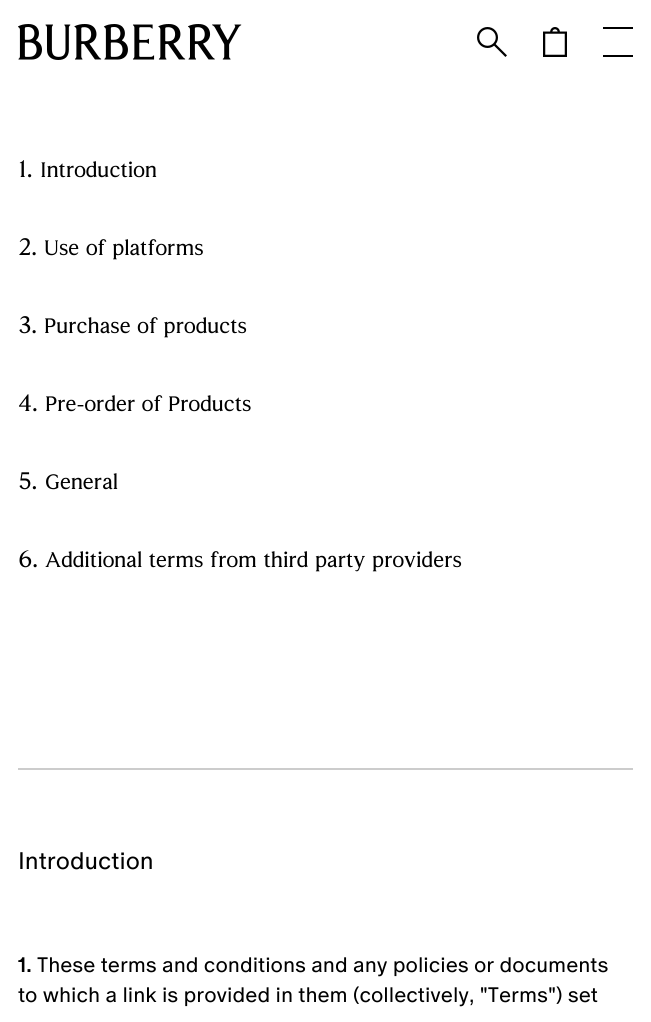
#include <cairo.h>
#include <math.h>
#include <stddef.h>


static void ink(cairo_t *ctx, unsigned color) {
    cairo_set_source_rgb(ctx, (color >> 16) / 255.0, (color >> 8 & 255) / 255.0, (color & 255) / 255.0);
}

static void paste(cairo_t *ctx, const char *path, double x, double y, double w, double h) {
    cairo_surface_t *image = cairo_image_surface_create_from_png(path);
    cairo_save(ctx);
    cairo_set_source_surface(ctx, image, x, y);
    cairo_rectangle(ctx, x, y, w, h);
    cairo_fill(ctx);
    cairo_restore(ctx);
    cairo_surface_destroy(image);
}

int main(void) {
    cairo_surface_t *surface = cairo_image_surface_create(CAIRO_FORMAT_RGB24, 651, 1022);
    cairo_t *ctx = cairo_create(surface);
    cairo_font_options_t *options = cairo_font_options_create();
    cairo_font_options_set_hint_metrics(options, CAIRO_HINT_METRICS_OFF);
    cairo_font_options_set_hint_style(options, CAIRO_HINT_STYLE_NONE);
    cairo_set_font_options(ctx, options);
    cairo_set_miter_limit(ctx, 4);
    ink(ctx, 0xFFFFFF);
    cairo_paint(ctx);
    paste(ctx, "media/1.png", 18, 24, 224, 36);
    paste(ctx, "media/2.png", 477, 27, 30, 30);
    paste(ctx, "media/3.png", 543, 27, 24, 30);
    ink(ctx, 0x000000);
    cairo_set_fill_rule(ctx, CAIRO_FILL_RULE_EVEN_ODD);
    cairo_new_path(ctx);
    cairo_move_to(ctx, 603, 29);
    cairo_line_to(ctx, 633, 29);
    cairo_line_to(ctx, 633, 27);
    cairo_line_to(ctx, 603, 27);
    cairo_close_path(ctx);
    cairo_move_to(ctx, 603, 57);
    cairo_line_to(ctx, 633, 57);
    cairo_line_to(ctx, 633, 55);
    cairo_line_to(ctx, 603, 55);
    cairo_close_path(ctx);
    cairo_fill(ctx);
    cairo_select_font_face(ctx, "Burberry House", CAIRO_FONT_SLANT_NORMAL, CAIRO_FONT_WEIGHT_NORMAL);
    cairo_set_font_size(ctx, 24);
    cairo_move_to(ctx, 18, 177);
    cairo_show_text(ctx, "1.");
    cairo_set_font_size(ctx, 21);
    cairo_move_to(ctx, 40, 177);
    cairo_show_text(ctx, "Introduction");
    cairo_set_font_size(ctx, 24);
    cairo_move_to(ctx, 18, 255);
    cairo_show_text(ctx, "2.");
    cairo_set_font_size(ctx, 21);
    cairo_move_to(ctx, 44, 255);
    cairo_show_text(ctx, "Use of platforms");
    cairo_set_font_size(ctx, 24);
    cairo_move_to(ctx, 18, 333);
    cairo_show_text(ctx, "3.");
    cairo_set_font_size(ctx, 21);
    cairo_move_to(ctx, 44, 333);
    cairo_show_text(ctx, "Purchase of products");
    cairo_set_font_size(ctx, 24);
    cairo_move_to(ctx, 18, 411);
    cairo_show_text(ctx, "4.");
    cairo_set_font_size(ctx, 21);
    cairo_move_to(ctx, 45, 411);
    cairo_show_text(ctx, "Pre-order of Products");
    cairo_set_font_size(ctx, 24);
    cairo_move_to(ctx, 18, 489);
    cairo_show_text(ctx, "5.");
    cairo_set_font_size(ctx, 21);
    cairo_move_to(ctx, 45, 489);
    cairo_show_text(ctx, "General");
    cairo_set_font_size(ctx, 24);
    cairo_move_to(ctx, 18, 567);
    cairo_show_text(ctx, "6.");
    cairo_set_font_size(ctx, 21);
    cairo_move_to(ctx, 45, 567);
    cairo_show_text(ctx, "Additional terms from third party providers");
    ink(ctx, 0xCCCCCC);
    cairo_rectangle(ctx, 18, 768, 615, 2);
    cairo_fill(ctx);
    cairo_select_font_face(ctx, "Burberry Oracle", CAIRO_FONT_SLANT_NORMAL, CAIRO_FONT_WEIGHT_NORMAL);
    cairo_set_font_size(ctx, 24);
    ink(ctx, 0x000000);
    cairo_move_to(ctx, 18, 869);
    cairo_show_text(ctx, "Introduction");
    cairo_select_font_face(ctx, "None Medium", CAIRO_FONT_SLANT_NORMAL, CAIRO_FONT_WEIGHT_NORMAL);
    cairo_set_font_size(ctx, 21);
    cairo_move_to(ctx, 18, 972);
    cairo_show_text(ctx, "1.");
    cairo_select_font_face(ctx, "Burberry Oracle", CAIRO_FONT_SLANT_NORMAL, CAIRO_FONT_WEIGHT_NORMAL);
    cairo_move_to(ctx, 37, 972);
    cairo_show_text(ctx, "These terms and conditions and any policies or documents");
    cairo_move_to(ctx, 18, 1002);
    cairo_show_text(ctx, "to which a link is provided in them (collectively, \"Terms\") set");
    cairo_surface_write_to_png(surface, "image.png");
    cairo_font_options_destroy(options);
    cairo_destroy(ctx);
    cairo_surface_destroy(surface);
    return 0;
}
